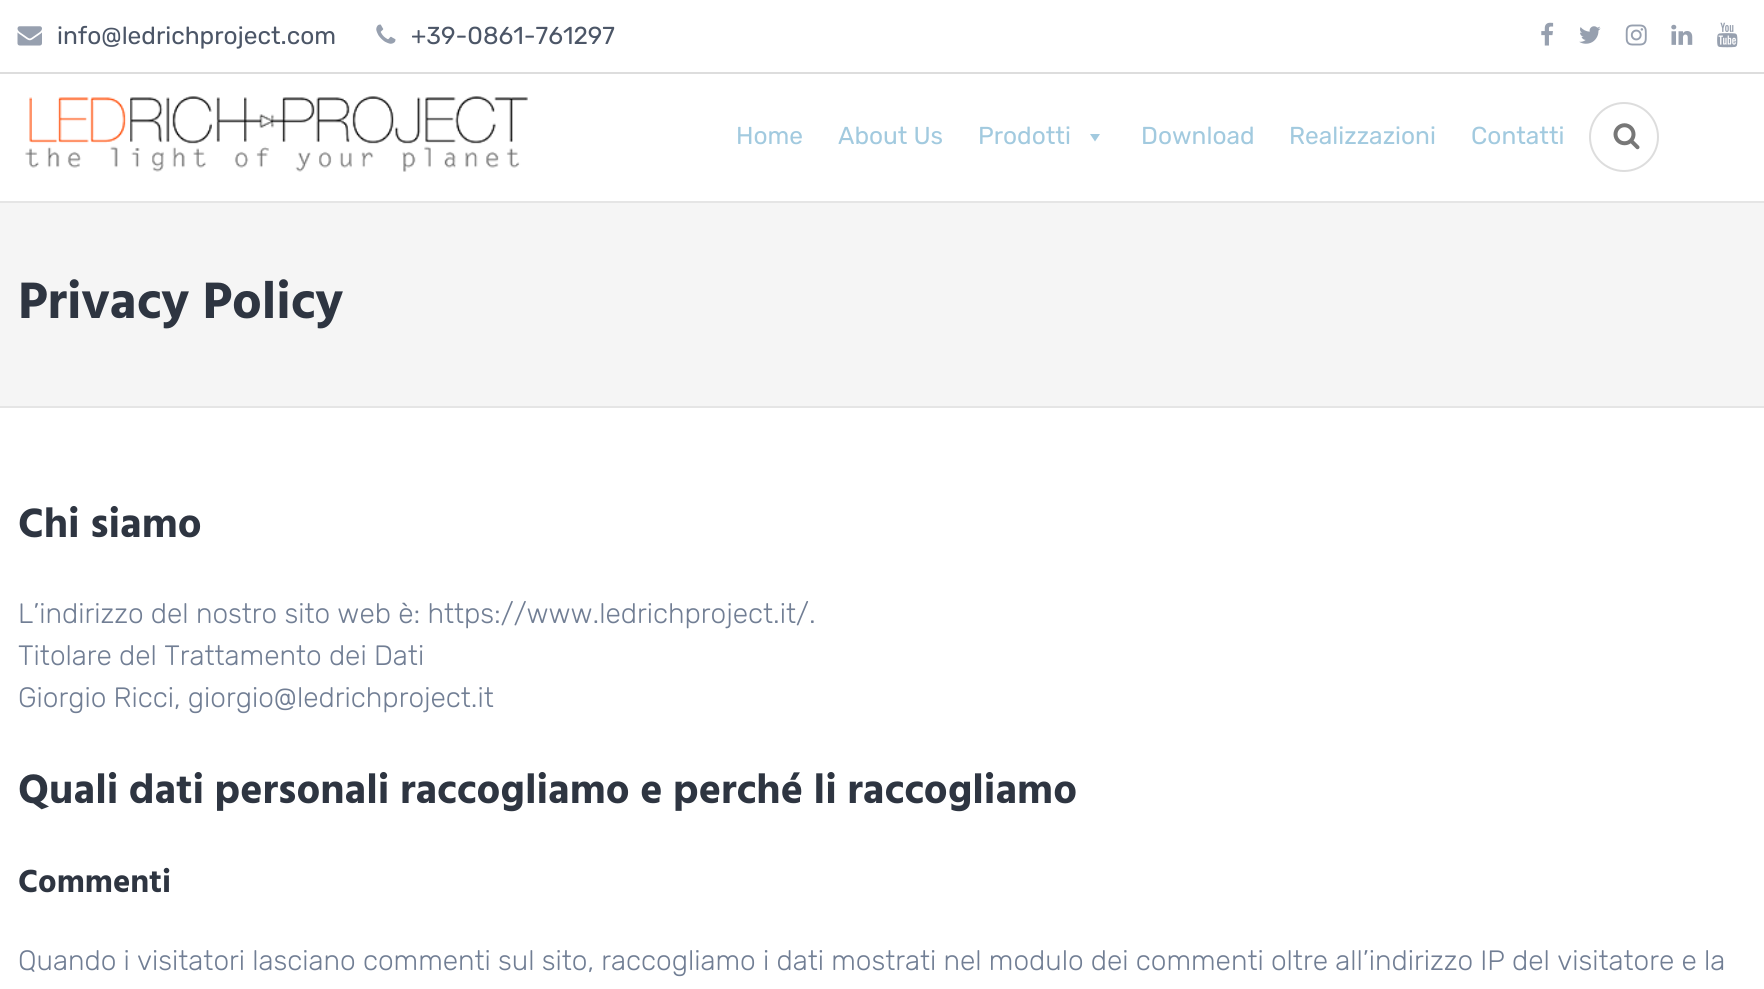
#include <cairo.h>
#include <math.h>
#include <stddef.h>

typedef struct { double x, y; const char *s; } line_t;
typedef struct { double x, y, w, h; unsigned color; } box_t;

static void ink(cairo_t *ctx, unsigned color) {
    cairo_set_source_rgb(ctx, (color >> 16) / 255.0, (color >> 8 & 255) / 255.0, (color & 255) / 255.0);
}

static void paste(cairo_t *ctx, const char *path, double x, double y, double w, double h) {
    cairo_surface_t *image = cairo_image_surface_create_from_png(path);
    cairo_save(ctx);
    cairo_set_source_surface(ctx, image, x, y);
    cairo_rectangle(ctx, x, y, w, h);
    cairo_fill(ctx);
    cairo_restore(ctx);
    cairo_surface_destroy(image);
}

int main(void) {
    cairo_surface_t *surface = cairo_image_surface_create(CAIRO_FORMAT_RGB24, 1764, 989);
    cairo_t *ctx = cairo_create(surface);
    cairo_font_options_t *options = cairo_font_options_create();
    cairo_font_options_set_hint_metrics(options, CAIRO_HINT_METRICS_OFF);
    cairo_font_options_set_hint_style(options, CAIRO_HINT_STYLE_NONE);
    cairo_set_font_options(ctx, options);
    cairo_set_miter_limit(ctx, 4);
    ink(ctx, 0xFFFFFF);
    cairo_paint(ctx);
    ink(ctx, 0xDDDDDD);
    cairo_rectangle(ctx, 0, 72, 1764, 2);
    cairo_fill(ctx);
    paste(ctx, "media/1.png", 17, 26, 25, 20);
    cairo_select_font_face(ctx, "Rubik", CAIRO_FONT_SLANT_NORMAL, CAIRO_FONT_WEIGHT_NORMAL);
    cairo_set_font_size(ctx, 24.5);
    ink(ctx, 0x4C5667);
    cairo_move_to(ctx, 57, 44);
    cairo_show_text(ctx, "info@ledrichproject.com");
    paste(ctx, "media/2.png", 376, 24, 20, 20);
    cairo_move_to(ctx, 411, 44);
    cairo_show_text(ctx, "+39-0861-761297");
    paste(ctx, "media/3.png", 1541, 22, 13, 24);
    paste(ctx, "media/4.png", 1579, 26, 22, 18);
    paste(ctx, "media/5.png", 1625, 24, 22, 22);
    paste(ctx, "media/6.png", 1671, 24, 22, 21);
    paste(ctx, "media/7.png", 1717, 22, 21, 26);
    paste(ctx, "media/8.png", 25, 96, 503, 76);
    ink(ctx, 0xA2CADF);
    {
        static const line_t items[] = {
            {736, 144, "Home"},
            {838, 144, "About Us"},
            {978, 144, "Prodotti"},
        };
        for (size_t i = 0; i < sizeof items / sizeof *items; i++) {
            cairo_move_to(ctx, items[i].x, items[i].y);
            cairo_show_text(ctx, items[i].s);
        }
    }
    cairo_new_path(ctx);
    cairo_move_to(ctx, 1100, 134);
    cairo_line_to(ctx, 1095, 141.5);
    cairo_line_to(ctx, 1090, 134);
    cairo_close_path(ctx);
    cairo_fill(ctx);
    {
        static const line_t items[] = {
            {1141, 144, "Download"},
            {1289, 144, "Realizzazioni"},
            {1471, 144, "Contatti"},
        };
        for (size_t i = 0; i < sizeof items / sizeof *items; i++) {
            cairo_move_to(ctx, items[i].x, items[i].y);
            cairo_show_text(ctx, items[i].s);
        }
    }
    cairo_new_path(ctx);
    cairo_arc(ctx, 1624, 137, 34, 0, 2 * M_PI);
    ink(ctx, 0xDDDDDD);
    cairo_stroke(ctx);
    paste(ctx, "media/9.png", 1613, 123, 27, 27);
    {
        static const box_t items[] = {
            {0, 203, 1764, 203, 0xF5F5F5},
            {0, 201, 1764, 2, 0xE5E5E5},
            {0, 406, 1764, 2, 0xE5E5E5},
        };
        for (size_t i = 0; i < sizeof items / sizeof *items; i++) {
            ink(ctx, items[i].color);
            cairo_rectangle(ctx, items[i].x, items[i].y, items[i].w, items[i].h);
            cairo_fill(ctx);
        }
    }
    cairo_select_font_face(ctx, "Hind", CAIRO_FONT_SLANT_NORMAL, CAIRO_FONT_WEIGHT_BOLD);
    cairo_set_font_size(ctx, 52.5);
    ink(ctx, 0x2E3541);
    cairo_move_to(ctx, 18, 318);
    cairo_show_text(ctx, "Privacy Policy");
    cairo_set_font_size(ctx, 42);
    cairo_move_to(ctx, 18, 537);
    cairo_show_text(ctx, "Chi siamo");
    cairo_select_font_face(ctx, "Rubik Light", CAIRO_FONT_SLANT_NORMAL, CAIRO_FONT_WEIGHT_NORMAL);
    cairo_set_font_size(ctx, 28);
    ink(ctx, 0x717E94);
    {
        static const line_t items[] = {
            {18, 623, "L’indirizzo del nostro sito web è: https://www.ledrichproject.it/."},
            {18, 665, "Titolare del Trattamento dei Dati"},
            {18, 707, "Giorgio Ricci, giorgio@ledrichproject.it"},
        };
        for (size_t i = 0; i < sizeof items / sizeof *items; i++) {
            cairo_move_to(ctx, items[i].x, items[i].y);
            cairo_show_text(ctx, items[i].s);
        }
    }
    cairo_select_font_face(ctx, "Hind", CAIRO_FONT_SLANT_NORMAL, CAIRO_FONT_WEIGHT_BOLD);
    cairo_set_font_size(ctx, 42);
    ink(ctx, 0x2E3541);
    cairo_move_to(ctx, 18, 803);
    cairo_show_text(ctx, "Quali dati personali raccogliamo e perché li raccogliamo");
    cairo_set_font_size(ctx, 32.75);
    cairo_move_to(ctx, 18, 892);
    cairo_show_text(ctx, "Commenti");
    cairo_select_font_face(ctx, "Rubik Light", CAIRO_FONT_SLANT_NORMAL, CAIRO_FONT_WEIGHT_NORMAL);
    cairo_set_font_size(ctx, 28);
    ink(ctx, 0x717E94);
    cairo_move_to(ctx, 18, 970);
    cairo_show_text(ctx, "Quando i visitatori lasciano commenti sul sito, raccogliamo i dati mostrati nel modulo dei commenti oltre all’indirizzo IP del visitatore e la");
    cairo_surface_write_to_png(surface, "image.png");
    cairo_font_options_destroy(options);
    cairo_destroy(ctx);
    cairo_surface_destroy(surface);
    return 0;
}
